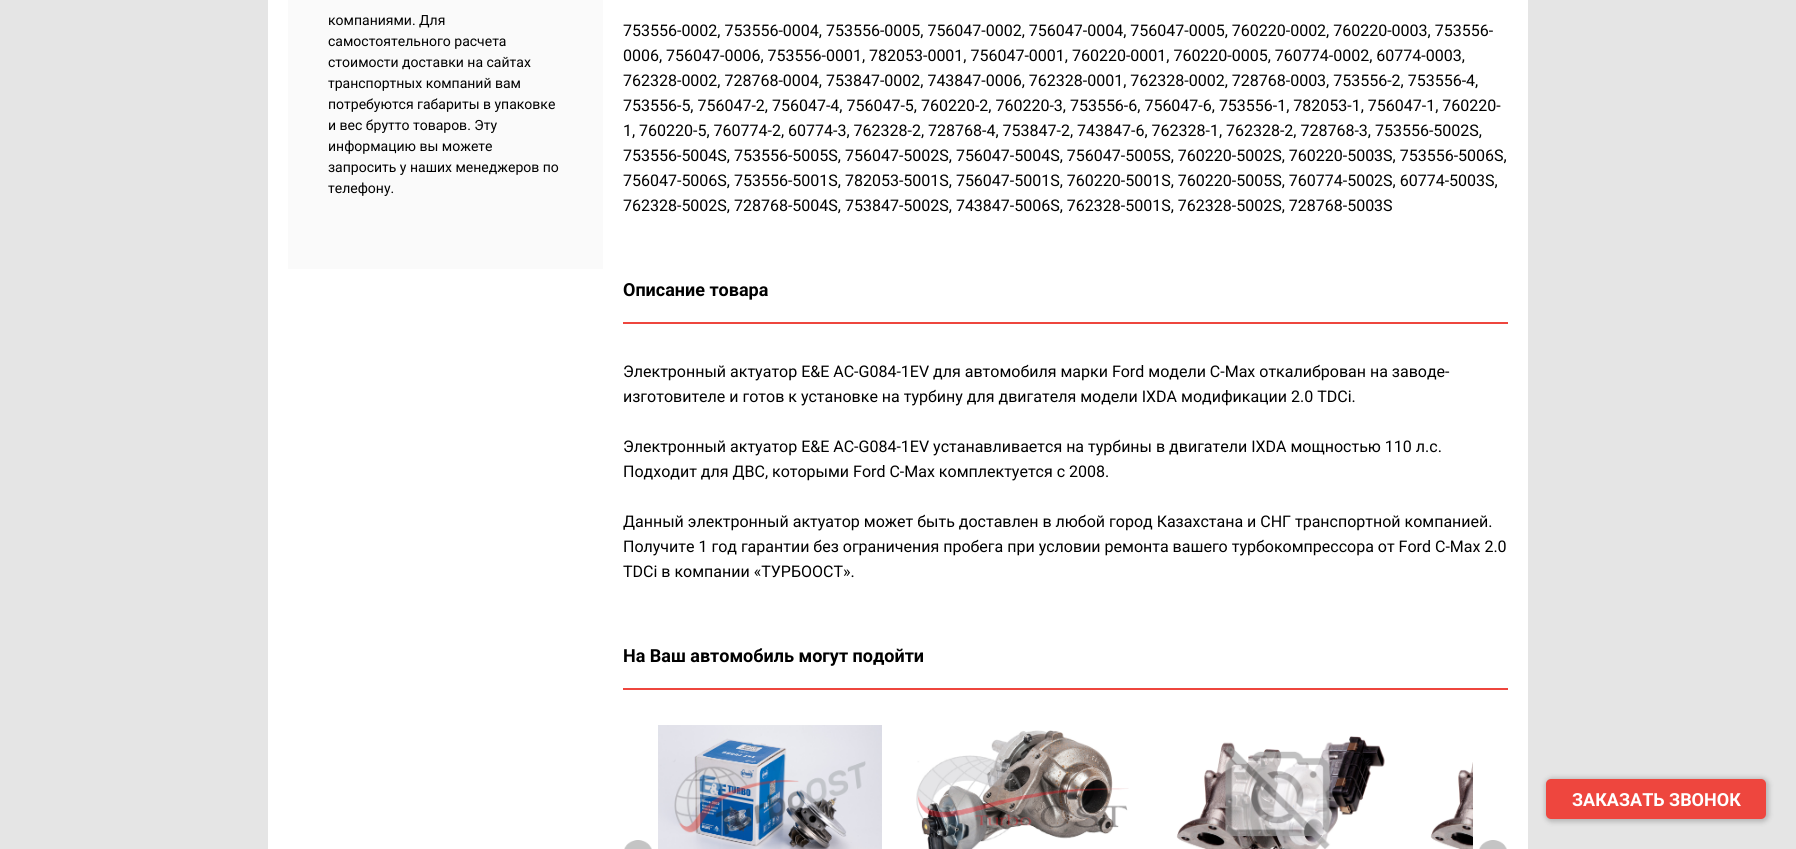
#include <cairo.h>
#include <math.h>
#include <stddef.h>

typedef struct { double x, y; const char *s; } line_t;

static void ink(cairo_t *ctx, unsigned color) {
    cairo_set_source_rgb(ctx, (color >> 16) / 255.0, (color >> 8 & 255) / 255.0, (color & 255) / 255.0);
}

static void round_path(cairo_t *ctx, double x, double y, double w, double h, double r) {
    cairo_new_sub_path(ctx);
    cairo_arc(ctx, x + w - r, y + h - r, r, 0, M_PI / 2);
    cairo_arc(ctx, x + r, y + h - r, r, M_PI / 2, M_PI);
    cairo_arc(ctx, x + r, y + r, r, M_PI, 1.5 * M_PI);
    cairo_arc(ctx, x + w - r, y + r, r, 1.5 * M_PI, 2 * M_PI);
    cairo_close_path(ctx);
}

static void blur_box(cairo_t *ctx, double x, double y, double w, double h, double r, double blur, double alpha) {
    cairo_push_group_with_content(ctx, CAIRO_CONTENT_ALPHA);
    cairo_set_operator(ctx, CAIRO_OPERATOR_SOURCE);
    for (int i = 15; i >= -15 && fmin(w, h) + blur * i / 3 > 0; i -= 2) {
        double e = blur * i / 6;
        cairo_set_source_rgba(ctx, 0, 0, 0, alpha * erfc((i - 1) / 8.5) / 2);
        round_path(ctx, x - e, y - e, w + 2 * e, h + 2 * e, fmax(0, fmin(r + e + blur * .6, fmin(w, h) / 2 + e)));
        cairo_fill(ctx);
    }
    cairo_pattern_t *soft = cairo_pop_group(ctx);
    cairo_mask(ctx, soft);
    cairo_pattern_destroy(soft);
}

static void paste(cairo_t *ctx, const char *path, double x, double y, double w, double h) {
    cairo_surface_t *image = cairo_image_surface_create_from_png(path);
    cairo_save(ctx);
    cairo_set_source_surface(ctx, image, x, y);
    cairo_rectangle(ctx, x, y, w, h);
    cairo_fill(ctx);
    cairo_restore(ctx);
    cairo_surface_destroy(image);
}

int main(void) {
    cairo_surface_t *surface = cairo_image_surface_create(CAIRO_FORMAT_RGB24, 1796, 849);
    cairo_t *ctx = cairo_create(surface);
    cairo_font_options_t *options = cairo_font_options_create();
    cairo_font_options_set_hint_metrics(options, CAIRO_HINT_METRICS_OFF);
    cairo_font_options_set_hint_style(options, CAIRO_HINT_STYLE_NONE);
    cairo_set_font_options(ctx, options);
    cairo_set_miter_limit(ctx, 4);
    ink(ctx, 0xE5E5E5);
    cairo_paint(ctx);
    ink(ctx, 0xFFFFFF);
    cairo_rectangle(ctx, 268, 0, 1260, 849);
    cairo_fill(ctx);
    ink(ctx, 0xFAFAFA);
    cairo_rectangle(ctx, 288, 0, 315, 269);
    cairo_fill(ctx);
    cairo_select_font_face(ctx, "Roboto", CAIRO_FONT_SLANT_NORMAL, CAIRO_FONT_WEIGHT_NORMAL);
    cairo_set_font_size(ctx, 14);
    ink(ctx, 0x000000);
    {
        static const line_t items[] = {
            {328, 25, "компаниями. Для"},
            {328, 46, "самостоятельного расчета"},
            {328, 67, "стоимости доставки на сайтах"},
            {328, 88, "транспортных компаний вам"},
            {328, 109, "потребуются габариты в упаковке"},
            {328, 130, "и вес брутто товаров. Эту"},
            {328, 151, "информацию вы можете"},
            {328, 172, "запросить у наших менеджеров по"},
            {328, 193, "телефону."},
        };
        for (size_t i = 0; i < sizeof items / sizeof *items; i++) {
            cairo_move_to(ctx, items[i].x, items[i].y);
            cairo_show_text(ctx, items[i].s);
        }
    }
    cairo_set_font_size(ctx, 16);
    {
        static const line_t items[] = {
            {623, 36, "753556-0002, 753556-0004, 753556-0005, 756047-0002, 756047-0004, 756047-0005, 760220-0002, 760220-0003, 753556-"},
            {623, 61, "0006, 756047-0006, 753556-0001, 782053-0001, 756047-0001, 760220-0001, 760220-0005, 760774-0002, 60774-0003,"},
            {623, 86, "762328-0002, 728768-0004, 753847-0002, 743847-0006, 762328-0001, 762328-0002, 728768-0003, 753556-2, 753556-4,"},
            {623, 111, "753556-5, 756047-2, 756047-4, 756047-5, 760220-2, 760220-3, 753556-6, 756047-6, 753556-1, 782053-1, 756047-1, 760220-"},
            {623, 136, "1, 760220-5, 760774-2, 60774-3, 762328-2, 728768-4, 753847-2, 743847-6, 762328-1, 762328-2, 728768-3, 753556-5002S,"},
            {623, 161, "753556-5004S, 753556-5005S, 756047-5002S, 756047-5004S, 756047-5005S, 760220-5002S, 760220-5003S, 753556-5006S,"},
            {623, 186, "756047-5006S, 753556-5001S, 782053-5001S, 756047-5001S, 760220-5001S, 760220-5005S, 760774-5002S, 60774-5003S,"},
            {623, 211, "762328-5002S, 728768-5004S, 753847-5002S, 743847-5006S, 762328-5001S, 762328-5002S, 728768-5003S"},
        };
        for (size_t i = 0; i < sizeof items / sizeof *items; i++) {
            cairo_move_to(ctx, items[i].x, items[i].y);
            cairo_show_text(ctx, items[i].s);
        }
    }
    ink(ctx, 0xEE463E);
    cairo_rectangle(ctx, 623, 322, 885, 2);
    cairo_fill(ctx);
    cairo_select_font_face(ctx, "Roboto", CAIRO_FONT_SLANT_NORMAL, CAIRO_FONT_WEIGHT_BOLD);
    cairo_set_font_size(ctx, 18);
    ink(ctx, 0x000000);
    cairo_move_to(ctx, 623, 296);
    cairo_show_text(ctx, "Описание товара");
    cairo_select_font_face(ctx, "Roboto", CAIRO_FONT_SLANT_NORMAL, CAIRO_FONT_WEIGHT_NORMAL);
    cairo_set_font_size(ctx, 16);
    {
        static const line_t items[] = {
            {623, 377, "Электронный актуатор E&E AC-G084-1EV для автомобиля марки Ford модели C-Max откалиброван на заводе-"},
            {623, 402, "изготовителе и готов к установке на турбину для двигателя модели IXDA модификации 2.0 TDCi."},
            {623, 452, "Электронный актуатор E&E AC-G084-1EV устанавливается на турбины в двигатели IXDA мощностью 110 л.с."},
            {623, 477, "Подходит для ДВС, которыми Ford C-Max комплектуется с 2008."},
            {623, 527, "Данный электронный актуатор может быть доставлен в любой город Казахстана и СНГ транспортной компанией."},
            {623, 552, "Получите 1 год гарантии без ограничения пробега при условии ремонта вашего турбокомпрессора от Ford C-Max 2.0"},
            {623, 577, "TDCi в компании «ТУРБООСТ»."},
        };
        for (size_t i = 0; i < sizeof items / sizeof *items; i++) {
            cairo_move_to(ctx, items[i].x, items[i].y);
            cairo_show_text(ctx, items[i].s);
        }
    }
    ink(ctx, 0xEE463E);
    cairo_rectangle(ctx, 623, 688, 885, 2);
    cairo_fill(ctx);
    cairo_select_font_face(ctx, "Roboto", CAIRO_FONT_SLANT_NORMAL, CAIRO_FONT_WEIGHT_BOLD);
    cairo_set_font_size(ctx, 18);
    ink(ctx, 0x000000);
    cairo_move_to(ctx, 623, 662);
    cairo_show_text(ctx, "На Ваш автомобиль могут подойти");
    paste(ctx, "media/1.png", 624, 840, 28, 9);
    paste(ctx, "media/2.png", 658, 725, 224, 124);
    paste(ctx, "media/3.png", 916, 730, 213, 119);
    paste(ctx, "media/4.png", 1176, 736, 209, 113);
    paste(ctx, "media/5.png", 1430, 762, 43, 87);
    paste(ctx, "media/6.png", 1479, 840, 28, 9);
    ink(ctx, 0x000000);
    blur_box(ctx, 1545, 778, 224, 44, 7, 2.5, 0.2);
    ink(ctx, 0xEE463E);
    round_path(ctx, 1546, 779, 220, 40, 5);
    cairo_fill(ctx);
    ink(ctx, 0xFFFFFF);
    cairo_move_to(ctx, 1572, 806);
    cairo_show_text(ctx, "ЗАКАЗАТЬ ЗВОНОК");
    cairo_surface_write_to_png(surface, "image.png");
    cairo_font_options_destroy(options);
    cairo_destroy(ctx);
    cairo_surface_destroy(surface);
    return 0;
}
